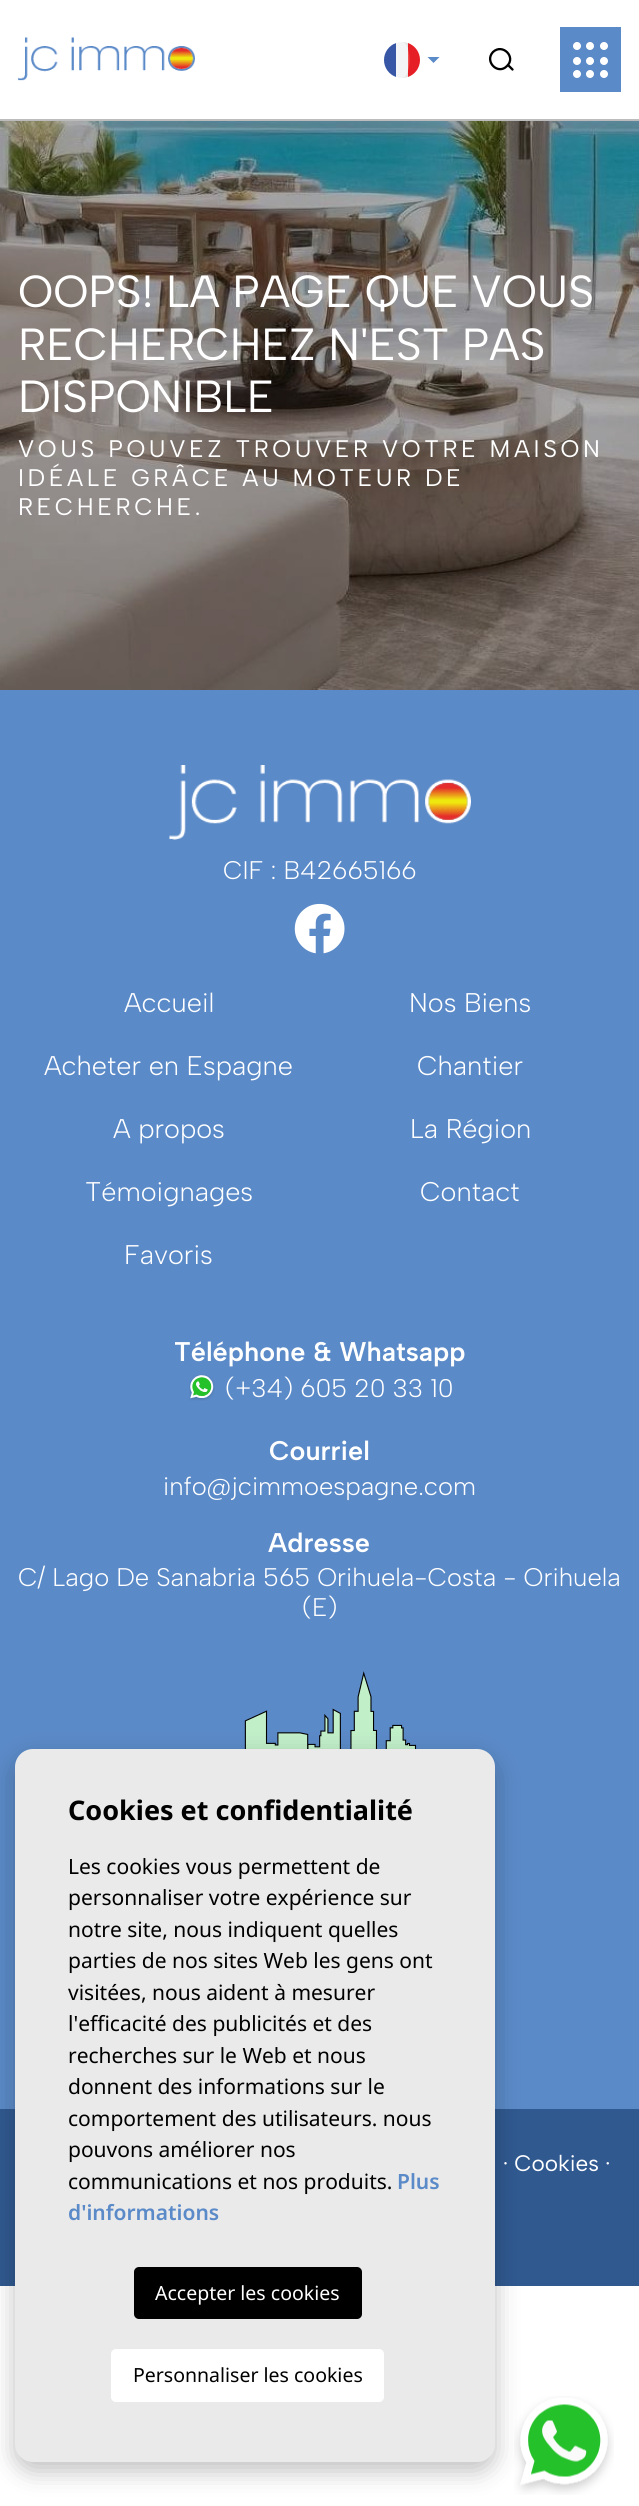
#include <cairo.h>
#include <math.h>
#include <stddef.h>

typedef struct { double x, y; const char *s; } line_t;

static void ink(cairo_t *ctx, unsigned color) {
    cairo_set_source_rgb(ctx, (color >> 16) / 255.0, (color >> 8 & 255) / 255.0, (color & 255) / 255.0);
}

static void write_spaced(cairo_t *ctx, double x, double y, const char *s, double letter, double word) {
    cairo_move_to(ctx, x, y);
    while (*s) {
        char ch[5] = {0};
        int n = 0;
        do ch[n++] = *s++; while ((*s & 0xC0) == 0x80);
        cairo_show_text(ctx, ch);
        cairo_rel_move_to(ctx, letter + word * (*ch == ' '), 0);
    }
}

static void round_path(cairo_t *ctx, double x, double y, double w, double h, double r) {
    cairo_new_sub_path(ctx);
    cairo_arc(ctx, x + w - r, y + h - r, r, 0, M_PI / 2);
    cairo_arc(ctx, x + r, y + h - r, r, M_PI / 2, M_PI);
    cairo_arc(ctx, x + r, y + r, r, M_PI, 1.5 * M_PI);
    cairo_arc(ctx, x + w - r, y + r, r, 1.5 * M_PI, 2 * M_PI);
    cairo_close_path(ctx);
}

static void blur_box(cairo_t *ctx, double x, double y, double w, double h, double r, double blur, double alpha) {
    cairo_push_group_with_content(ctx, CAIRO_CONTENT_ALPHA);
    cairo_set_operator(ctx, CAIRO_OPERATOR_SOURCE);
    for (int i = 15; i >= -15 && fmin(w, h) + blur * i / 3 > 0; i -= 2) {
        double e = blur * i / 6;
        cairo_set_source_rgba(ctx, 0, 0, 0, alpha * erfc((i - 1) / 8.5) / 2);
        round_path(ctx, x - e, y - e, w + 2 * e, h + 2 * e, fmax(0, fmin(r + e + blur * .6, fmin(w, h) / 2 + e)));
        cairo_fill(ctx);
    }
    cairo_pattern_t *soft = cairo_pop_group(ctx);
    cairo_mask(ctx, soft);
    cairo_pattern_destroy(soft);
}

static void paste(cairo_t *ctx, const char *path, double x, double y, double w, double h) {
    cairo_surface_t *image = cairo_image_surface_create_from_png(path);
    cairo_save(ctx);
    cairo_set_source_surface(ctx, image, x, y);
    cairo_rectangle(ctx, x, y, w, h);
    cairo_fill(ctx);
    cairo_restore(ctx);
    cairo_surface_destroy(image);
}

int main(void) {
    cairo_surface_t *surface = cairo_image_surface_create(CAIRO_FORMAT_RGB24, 639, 2506);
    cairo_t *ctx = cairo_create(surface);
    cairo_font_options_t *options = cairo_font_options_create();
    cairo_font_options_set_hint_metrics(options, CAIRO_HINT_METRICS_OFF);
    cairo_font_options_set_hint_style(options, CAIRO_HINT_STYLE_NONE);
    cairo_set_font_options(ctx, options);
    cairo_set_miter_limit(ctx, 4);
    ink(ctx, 0xFFFFFF);
    cairo_paint(ctx);
    ink(ctx, 0xBCBCBC);
    cairo_rectangle(ctx, 0, 119, 639, 2);
    cairo_fill(ctx);
    paste(ctx, "media/1.png", 18, 37, 177, 44);
    paste(ctx, "media/2.png", 384, 42, 36, 36);
    ink(ctx, 0x5B8AC8);
    cairo_new_path(ctx);
    cairo_move_to(ctx, 427.5, 57);
    cairo_line_to(ctx, 439.5, 57);
    cairo_line_to(ctx, 433.5, 63);
    cairo_close_path(ctx);
    cairo_fill(ctx);
    cairo_new_path(ctx);
    cairo_move_to(ctx, 493, 52);
    cairo_curve_to(ctx, 502.5, 43, 516.5, 57, 507, 66);
    cairo_curve_to(ctx, 498, 75.5, 484, 61.5, 493, 52);
    cairo_close_path(ctx);
    ink(ctx, 0x000000);
    cairo_set_line_width(ctx, 2.3);
    cairo_stroke(ctx);
    cairo_new_path(ctx);
    cairo_move_to(ctx, 509, 66);
    cairo_line_to(ctx, 512.5, 69.5);
    cairo_set_line_cap(ctx, CAIRO_LINE_CAP_ROUND);
    cairo_stroke(ctx);
    ink(ctx, 0x5B8AC8);
    cairo_rectangle(ctx, 560, 27, 61, 65);
    cairo_fill(ctx);
    paste(ctx, "media/3.png", 573, 42, 35, 36);
    paste(ctx, "media/4.png", 0, 121, 639, 569);
    cairo_select_font_face(ctx, "Albert Sans", CAIRO_FONT_SLANT_NORMAL, CAIRO_FONT_WEIGHT_NORMAL);
    cairo_set_font_size(ctx, 45);
    ink(ctx, 0xFFFFFF);
    {
        static const line_t items[] = {
            {18, 307, "OOPS! LA PAGE QUE VOUS"},
            {18, 360, "RECHERCHEZ N'EST PAS"},
            {18, 412, "DISPONIBLE"},
        };
        for (size_t i = 0; i < sizeof items / sizeof *items; i++) {
            cairo_move_to(ctx, items[i].x, items[i].y);
            cairo_show_text(ctx, items[i].s);
        }
    }
    cairo_set_font_size(ctx, 24);
    {
        static const line_t items[] = {
            {18, 457, "VOUS POUVEZ TROUVER VOTRE MAISON"},
            {18, 486, "IDÉALE GRÂCE AU MOTEUR DE"},
            {18, 515, "RECHERCHE."},
        };
        for (size_t i = 0; i < sizeof items / sizeof *items; i++) {
            write_spaced(ctx, items[i].x, items[i].y, items[i].s, 3.6, 0);
        }
    }
    ink(ctx, 0x5B8AC8);
    cairo_rectangle(ctx, 0, 690, 639, 1419);
    cairo_fill(ctx);
    paste(ctx, "media/5.png", 169, 765, 302, 75);
    cairo_select_font_face(ctx, "Albert Sans Light", CAIRO_FONT_SLANT_NORMAL, CAIRO_FONT_WEIGHT_NORMAL);
    cairo_set_font_size(ctx, 25.5);
    ink(ctx, 0xFFFFFF);
    cairo_move_to(ctx, 223, 879);
    cairo_show_text(ctx, "CIF : B42665166");
    paste(ctx, "media/6.png", 294, 903, 51, 51);
    cairo_set_font_size(ctx, 27);
    {
        static const line_t items[] = {
            {124, 1012, "Accueil"},
            {409, 1012, "Nos Biens"},
            {44, 1075, "Acheter en Espagne"},
            {417, 1075, "Chantier"},
            {113, 1138, "A propos"},
            {410, 1138, "La Région"},
            {85, 1201, "Témoignages"},
            {420, 1201, "Contact"},
            {124, 1264, "Favoris"},
        };
        for (size_t i = 0; i < sizeof items / sizeof *items; i++) {
            cairo_move_to(ctx, items[i].x, items[i].y);
            cairo_show_text(ctx, items[i].s);
        }
    }
    cairo_select_font_face(ctx, "Albert Sans SemiBold", CAIRO_FONT_SLANT_NORMAL, CAIRO_FONT_WEIGHT_NORMAL);
    cairo_move_to(ctx, 174, 1361);
    cairo_show_text(ctx, "Téléphone & Whatsapp");
    paste(ctx, "media/7.png", 189, 1374, 26, 27);
    cairo_select_font_face(ctx, "Albert Sans Light", CAIRO_FONT_SLANT_NORMAL, CAIRO_FONT_WEIGHT_NORMAL);
    cairo_set_font_size(ctx, 25.5);
    cairo_move_to(ctx, 225, 1397);
    cairo_show_text(ctx, "(+34) 605 20 33 10");
    cairo_select_font_face(ctx, "Albert Sans SemiBold", CAIRO_FONT_SLANT_NORMAL, CAIRO_FONT_WEIGHT_NORMAL);
    cairo_set_font_size(ctx, 27);
    cairo_move_to(ctx, 269, 1460);
    cairo_show_text(ctx, "Courriel");
    cairo_select_font_face(ctx, "Albert Sans Light", CAIRO_FONT_SLANT_NORMAL, CAIRO_FONT_WEIGHT_NORMAL);
    cairo_set_font_size(ctx, 25.5);
    cairo_move_to(ctx, 163, 1495);
    cairo_show_text(ctx, "info@jcimmoespagne.com");
    cairo_select_font_face(ctx, "Albert Sans SemiBold", CAIRO_FONT_SLANT_NORMAL, CAIRO_FONT_WEIGHT_NORMAL);
    cairo_set_font_size(ctx, 27);
    cairo_move_to(ctx, 268, 1552);
    cairo_show_text(ctx, "Adresse");
    cairo_select_font_face(ctx, "Albert Sans Light", CAIRO_FONT_SLANT_NORMAL, CAIRO_FONT_WEIGHT_NORMAL);
    cairo_set_font_size(ctx, 25.5);
    cairo_move_to(ctx, 18, 1586);
    cairo_show_text(ctx, "C/ Lago De Sanabria 565 Orihuela-Costa - Orihuela");
    cairo_move_to(ctx, 302, 1616);
    cairo_show_text(ctx, "(E)");
    paste(ctx, "media/8.png", 244, 1671, 173, 78);
    ink(ctx, 0x305990);
    cairo_rectangle(ctx, 0, 2109, 639, 177);
    cairo_fill(ctx);
    paste(ctx, "media/9.png", 514, 2396, 100, 99);
    ink(ctx, 0x000000);
    blur_box(ctx, 15, 1758, 480, 713, 18, 12, 0.25);
    ink(ctx, 0xEAEAEA);
    round_path(ctx, 15, 1749, 480, 713, 18);
    cairo_fill(ctx);
    cairo_select_font_face(ctx, "Noto Sans", CAIRO_FONT_SLANT_NORMAL, CAIRO_FONT_WEIGHT_BOLD);
    cairo_set_font_size(ctx, 27);
    ink(ctx, 0x000000);
    cairo_move_to(ctx, 68, 1820);
    cairo_show_text(ctx, "Cookies et confidentialité");
    cairo_select_font_face(ctx, "Noto Sans", CAIRO_FONT_SLANT_NORMAL, CAIRO_FONT_WEIGHT_NORMAL);
    cairo_set_font_size(ctx, 21);
    {
        static const line_t items[] = {
            {68, 1874, "Les cookies vous permettent de"},
            {68, 1905, "personnaliser votre expérience sur"},
            {68, 1937, "notre site, nous indiquent quelles"},
            {68, 1968, "parties de nos sites Web les gens ont"},
            {68, 2000, "visitées, nous aident à mesurer"},
            {68, 2031, "l'efficacité des publicités et des"},
            {68, 2063, "recherches sur le Web et nous"},
            {68, 2094, "donnent des informations sur le"},
            {68, 2126, "comportement des utilisateurs. nous"},
            {68, 2157, "pouvons améliorer nos"},
            {68, 2189, "communications et nos produits."},
        };
        for (size_t i = 0; i < sizeof items / sizeof *items; i++) {
            cairo_move_to(ctx, items[i].x, items[i].y);
            cairo_show_text(ctx, items[i].s);
        }
    }
    cairo_select_font_face(ctx, "Noto Sans SemiBold", CAIRO_FONT_SLANT_NORMAL, CAIRO_FONT_WEIGHT_NORMAL);
    ink(ctx, 0x5B8AC8);
    cairo_move_to(ctx, 397, 2189);
    cairo_show_text(ctx, "Plus");
    cairo_move_to(ctx, 68, 2220);
    cairo_show_text(ctx, "d'informations");
    ink(ctx, 0x000000);
    round_path(ctx, 134, 2267, 228, 52, 5);
    cairo_fill(ctx);
    cairo_select_font_face(ctx, "Noto Sans", CAIRO_FONT_SLANT_NORMAL, CAIRO_FONT_WEIGHT_NORMAL);
    cairo_set_font_size(ctx, 19.5);
    ink(ctx, 0xFFFFFF);
    cairo_move_to(ctx, 155, 2300);
    cairo_show_text(ctx, "Accepter les cookies");
    round_path(ctx, 111, 2349, 273, 53, 5);
    cairo_fill(ctx);
    ink(ctx, 0x000000);
    cairo_move_to(ctx, 133, 2382);
    cairo_show_text(ctx, "Personnaliser les cookies");
    cairo_select_font_face(ctx, "Albert Sans", CAIRO_FONT_SLANT_NORMAL, CAIRO_FONT_WEIGHT_NORMAL);
    cairo_set_font_size(ctx, 22.5);
    ink(ctx, 0xFFFFFF);
    cairo_move_to(ctx, 503, 2171);
    cairo_show_text(ctx, "· Cookies ·");
    cairo_surface_write_to_png(surface, "image.png");
    cairo_font_options_destroy(options);
    cairo_destroy(ctx);
    cairo_surface_destroy(surface);
    return 0;
}
